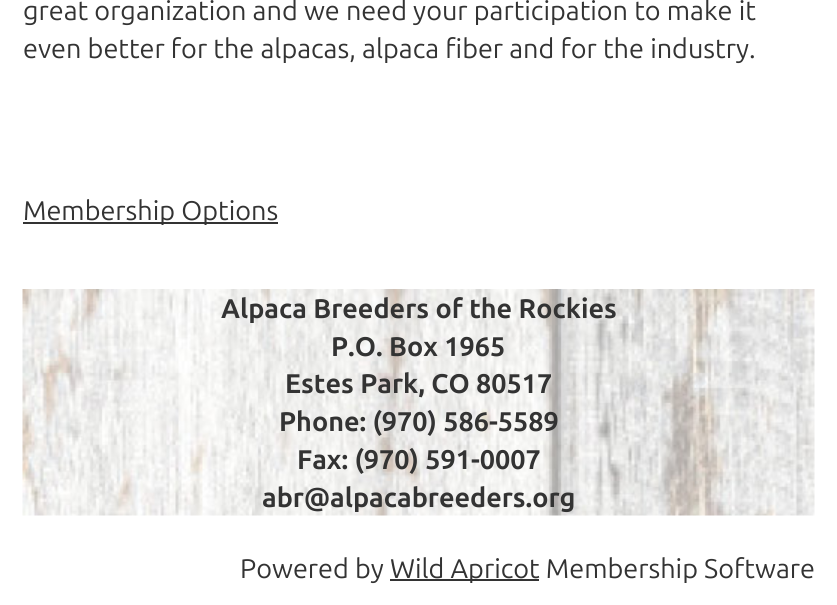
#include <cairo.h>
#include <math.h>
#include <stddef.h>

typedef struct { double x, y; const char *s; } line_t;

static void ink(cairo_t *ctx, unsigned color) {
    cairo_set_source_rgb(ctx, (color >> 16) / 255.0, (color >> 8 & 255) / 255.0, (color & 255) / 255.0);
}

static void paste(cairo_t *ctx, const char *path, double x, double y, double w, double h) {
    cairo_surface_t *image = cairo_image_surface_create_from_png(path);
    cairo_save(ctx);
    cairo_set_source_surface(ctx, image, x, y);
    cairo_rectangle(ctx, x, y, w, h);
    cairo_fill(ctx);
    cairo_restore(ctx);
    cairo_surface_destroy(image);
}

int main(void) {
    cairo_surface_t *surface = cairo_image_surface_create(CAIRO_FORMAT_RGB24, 837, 605);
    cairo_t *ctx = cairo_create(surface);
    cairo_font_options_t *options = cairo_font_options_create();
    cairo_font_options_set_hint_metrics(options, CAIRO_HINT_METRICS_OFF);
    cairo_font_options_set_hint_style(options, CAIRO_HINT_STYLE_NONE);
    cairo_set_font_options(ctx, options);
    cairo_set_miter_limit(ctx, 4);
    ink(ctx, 0xFFFFFF);
    cairo_paint(ctx);
    cairo_select_font_face(ctx, "Ubuntu", CAIRO_FONT_SLANT_NORMAL, CAIRO_FONT_WEIGHT_NORMAL);
    cairo_set_font_size(ctx, 27);
    ink(ctx, 0x333333);
    cairo_move_to(ctx, 23, 20);
    cairo_show_text(ctx, "great organization and we need your participation to make it");
    cairo_move_to(ctx, 23, 58);
    cairo_show_text(ctx, "even better for the alpacas, alpaca fiber and for the industry.");
    cairo_rectangle(ctx, 23, 222, 255, 2);
    cairo_fill(ctx);
    cairo_move_to(ctx, 23, 220);
    cairo_show_text(ctx, "Membership Options");
    paste(ctx, "media/1.png", 22, 289, 793, 227);
    cairo_select_font_face(ctx, "Ubuntu", CAIRO_FONT_SLANT_NORMAL, CAIRO_FONT_WEIGHT_BOLD);
    {
        static const line_t items[] = {
            {221, 318, "Alpaca Breeders of the Rockies"},
            {331, 356, "P.O. Box 1965"},
            {285, 393, "Estes Park, CO 80517"},
            {279, 431, "Phone: (970) 586-5589"},
            {297, 469, "Fax: (970) 591-0007"},
            {262, 507, "abr@alpacabreeders.org"},
        };
        for (size_t i = 0; i < sizeof items / sizeof *items; i++) {
            cairo_move_to(ctx, items[i].x, items[i].y);
            cairo_show_text(ctx, items[i].s);
        }
    }
    cairo_select_font_face(ctx, "Ubuntu", CAIRO_FONT_SLANT_NORMAL, CAIRO_FONT_WEIGHT_NORMAL);
    cairo_move_to(ctx, 240, 578);
    cairo_show_text(ctx, "Powered by");
    cairo_rectangle(ctx, 390, 579, 149, 2);
    cairo_fill(ctx);
    cairo_move_to(ctx, 390, 578);
    cairo_show_text(ctx, "Wild Apricot Membership Software");
    cairo_surface_write_to_png(surface, "image.png");
    cairo_font_options_destroy(options);
    cairo_destroy(ctx);
    cairo_surface_destroy(surface);
    return 0;
}
